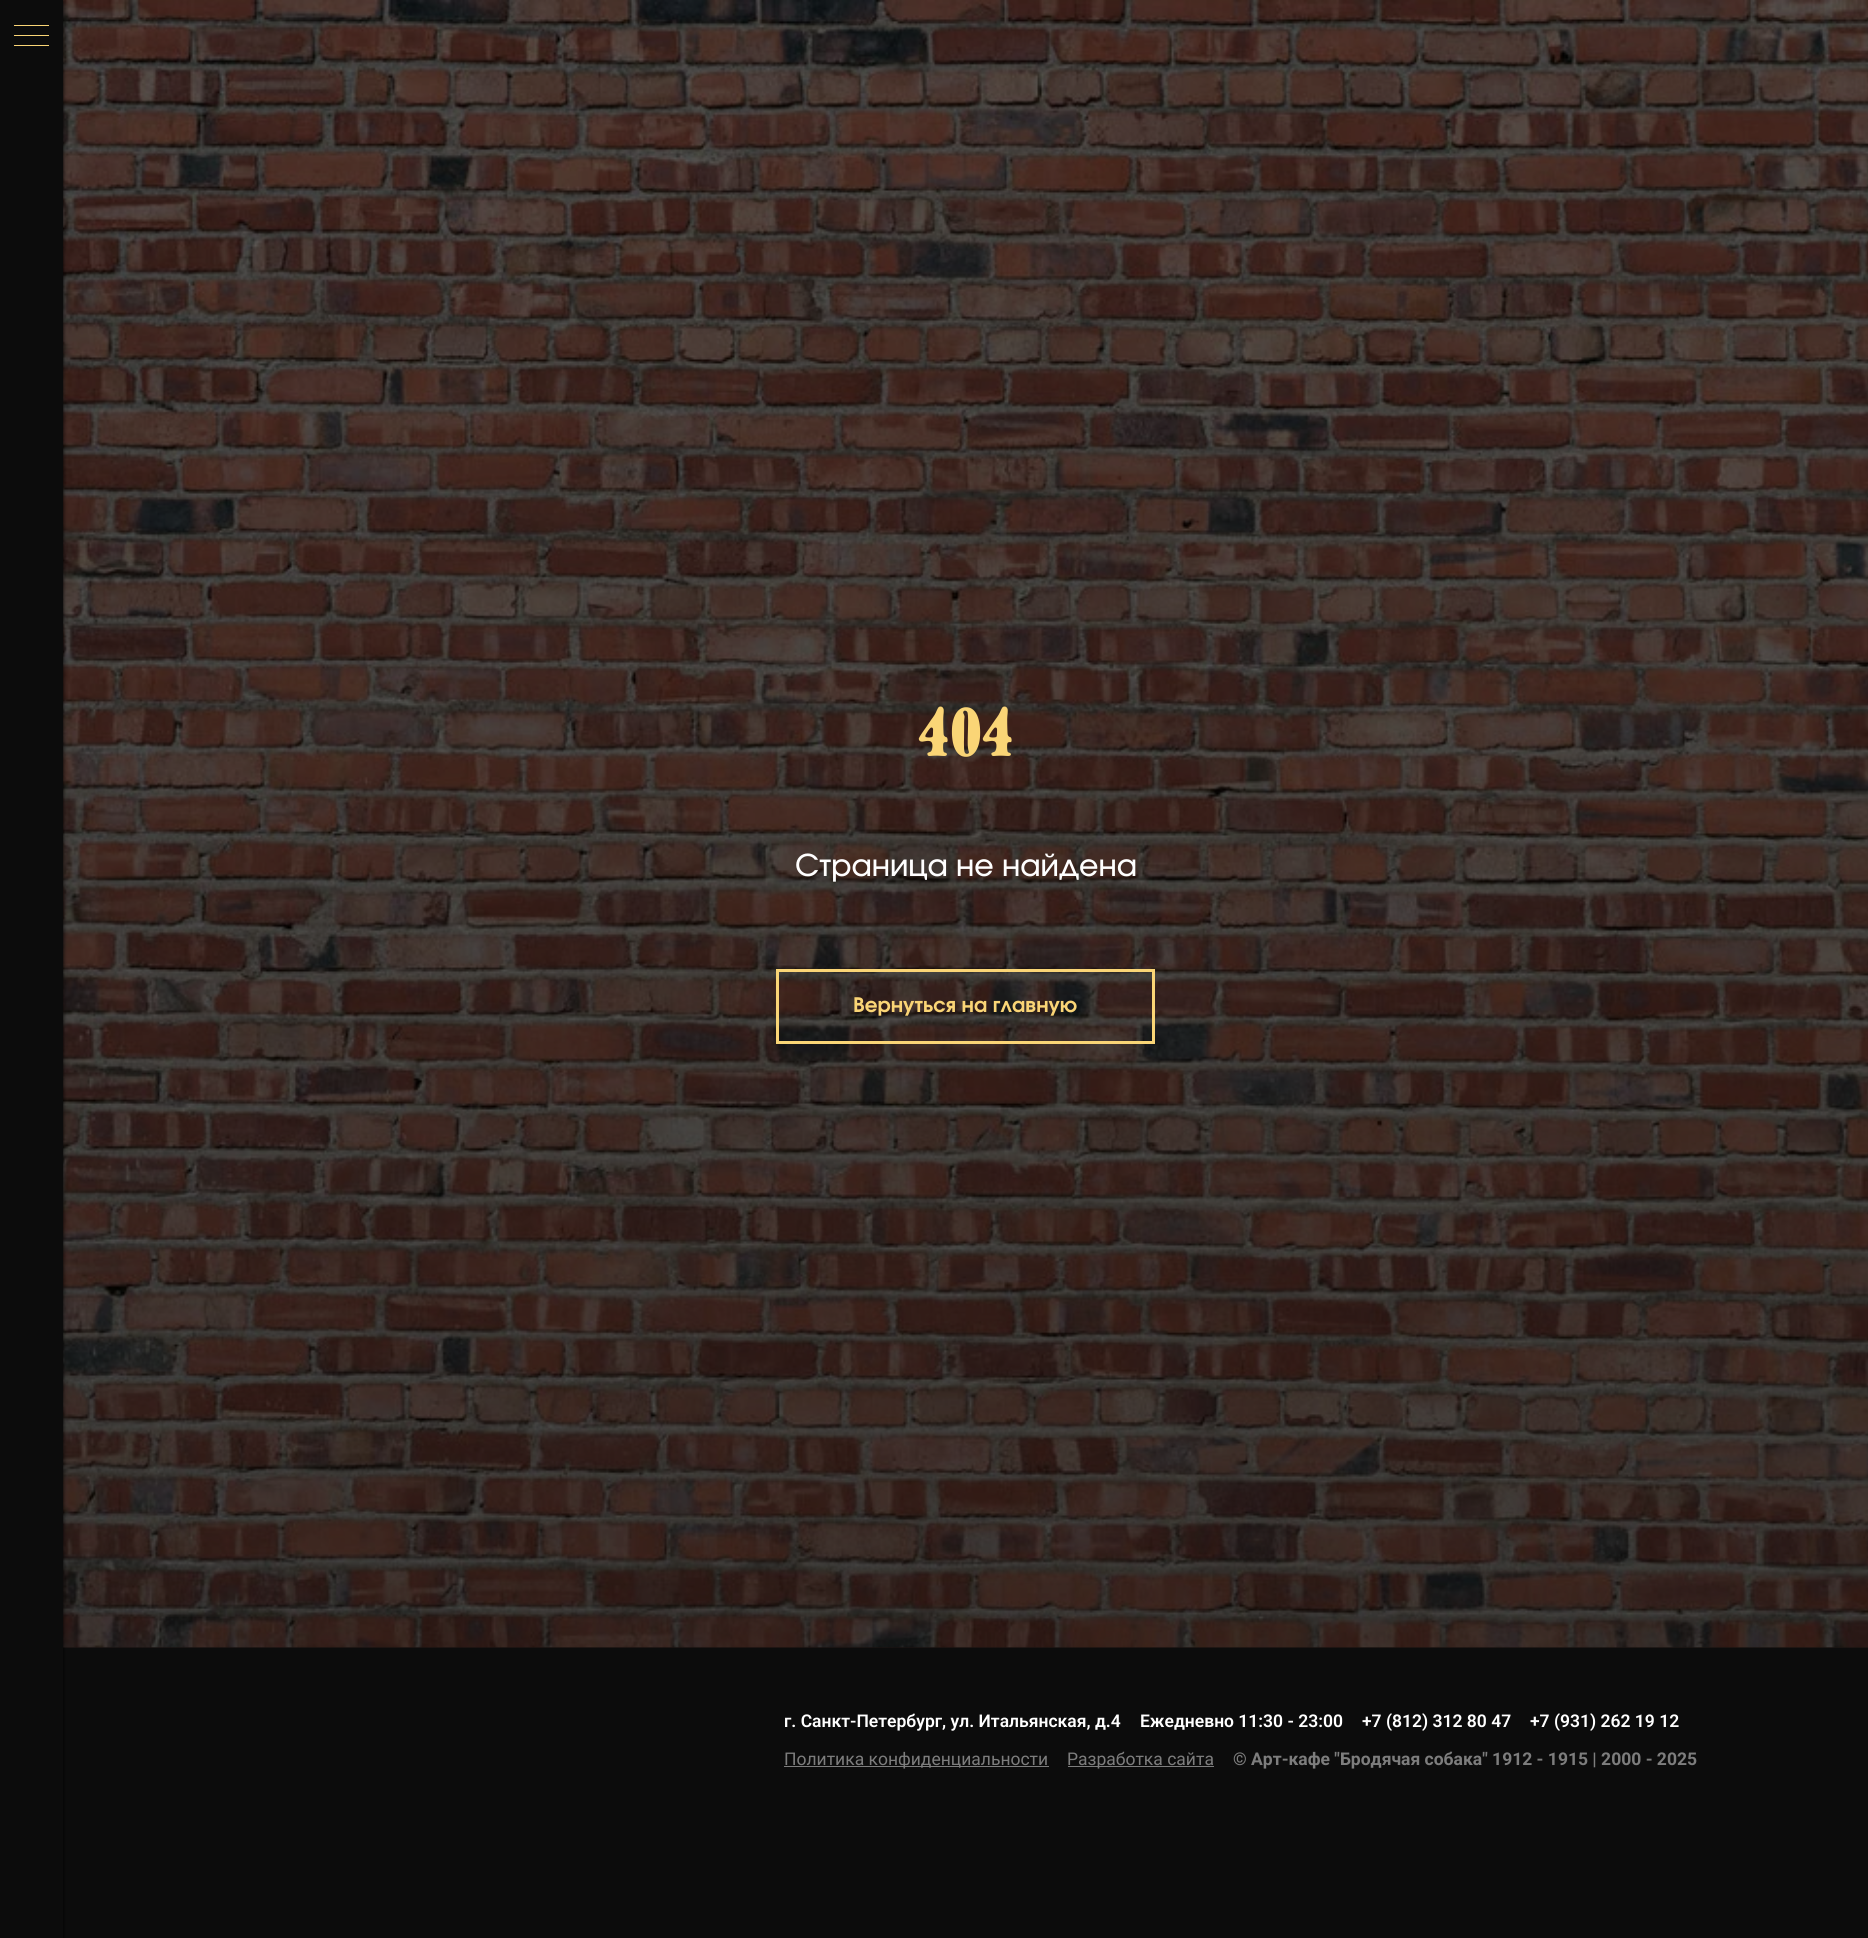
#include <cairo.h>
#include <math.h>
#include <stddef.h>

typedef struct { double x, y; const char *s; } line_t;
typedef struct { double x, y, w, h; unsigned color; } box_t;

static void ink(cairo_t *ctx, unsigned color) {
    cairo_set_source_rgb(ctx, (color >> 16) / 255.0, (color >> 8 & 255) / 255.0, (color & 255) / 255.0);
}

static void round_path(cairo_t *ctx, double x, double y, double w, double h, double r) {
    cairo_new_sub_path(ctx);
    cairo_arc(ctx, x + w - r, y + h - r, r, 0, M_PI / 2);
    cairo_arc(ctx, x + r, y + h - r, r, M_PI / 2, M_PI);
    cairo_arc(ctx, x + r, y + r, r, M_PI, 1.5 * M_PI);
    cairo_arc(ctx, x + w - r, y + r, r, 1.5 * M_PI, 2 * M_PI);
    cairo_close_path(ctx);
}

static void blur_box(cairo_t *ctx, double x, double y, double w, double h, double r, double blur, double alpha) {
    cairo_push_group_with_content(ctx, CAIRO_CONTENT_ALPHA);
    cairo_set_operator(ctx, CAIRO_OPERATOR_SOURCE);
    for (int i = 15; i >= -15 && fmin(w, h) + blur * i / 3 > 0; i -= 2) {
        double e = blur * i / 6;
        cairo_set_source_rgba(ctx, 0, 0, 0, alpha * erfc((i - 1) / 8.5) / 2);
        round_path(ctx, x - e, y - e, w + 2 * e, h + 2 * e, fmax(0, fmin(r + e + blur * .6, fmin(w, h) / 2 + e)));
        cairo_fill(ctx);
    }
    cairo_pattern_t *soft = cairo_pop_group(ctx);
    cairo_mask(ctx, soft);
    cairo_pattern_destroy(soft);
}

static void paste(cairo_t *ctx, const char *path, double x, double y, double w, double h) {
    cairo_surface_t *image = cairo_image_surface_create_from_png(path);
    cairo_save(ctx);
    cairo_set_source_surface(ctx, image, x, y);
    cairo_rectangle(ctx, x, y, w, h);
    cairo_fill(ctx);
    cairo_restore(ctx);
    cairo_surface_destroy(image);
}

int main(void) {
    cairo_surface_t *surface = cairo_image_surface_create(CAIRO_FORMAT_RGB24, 1868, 1938);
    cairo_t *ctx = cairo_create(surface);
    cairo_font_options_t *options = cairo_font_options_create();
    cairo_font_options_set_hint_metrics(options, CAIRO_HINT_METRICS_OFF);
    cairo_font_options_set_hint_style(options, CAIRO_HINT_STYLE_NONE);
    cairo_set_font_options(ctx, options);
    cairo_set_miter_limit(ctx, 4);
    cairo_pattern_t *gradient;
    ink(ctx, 0x0C0C0C);
    cairo_paint(ctx);
    ink(ctx, 0x000000);
    cairo_rectangle(ctx, 63, 1647, 1805, 1);
    cairo_fill(ctx);
    paste(ctx, "media/1.png", 63, 1647, 1805, 1);
    paste(ctx, "media/2.png", 63, 0, 1805, 1648);
    gradient = cairo_pattern_create_linear(966, 0, 966, 1648);
    cairo_pattern_add_color_stop_rgba(gradient, 0, 0, 0, 0, 0.6);
    cairo_pattern_add_color_stop_rgba(gradient, 1, 0, 0, 0, 0.7);
    cairo_set_source(ctx, gradient);
    cairo_pattern_destroy(gradient);
    cairo_rectangle(ctx, 63, 0, 1805, 1648);
    cairo_fill(ctx);
    ink(ctx, 0x000000);
    blur_box(ctx, -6, 1, 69, 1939, 0, 2, 1);
    {
        static const box_t items[] = {
            {0, 0, 63, 1938, 0x0C0C0C},
            {14, 25, 35, 1, 0xFAD576},
            {14, 35, 35, 1, 0xFAD576},
            {14, 45, 35, 1, 0xFAD576},
        };
        for (size_t i = 0; i < sizeof items / sizeof *items; i++) {
            ink(ctx, items[i].color);
            cairo_rectangle(ctx, items[i].x, items[i].y, items[i].w, items[i].h);
            cairo_fill(ctx);
        }
    }
    cairo_select_font_face(ctx, "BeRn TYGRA", CAIRO_FONT_SLANT_NORMAL, CAIRO_FONT_WEIGHT_NORMAL);
    cairo_set_font_size(ctx, 70);
    cairo_move_to(ctx, 918, 756);
    cairo_show_text(ctx, "404");
    cairo_select_font_face(ctx, "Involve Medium", CAIRO_FONT_SLANT_NORMAL, CAIRO_FONT_WEIGHT_NORMAL);
    cairo_set_font_size(ctx, 30);
    ink(ctx, 0xFFFFFF);
    cairo_move_to(ctx, 795, 876);
    cairo_show_text(ctx, "Страница не найдена");
    cairo_rectangle(ctx, 777.5, 970.5, 376, 72);
    ink(ctx, 0xFAD576);
    cairo_set_line_width(ctx, 3);
    cairo_stroke(ctx);
    cairo_select_font_face(ctx, "Involve", CAIRO_FONT_SLANT_NORMAL, CAIRO_FONT_WEIGHT_BOLD);
    cairo_set_font_size(ctx, 20);
    cairo_move_to(ctx, 853, 1012);
    cairo_show_text(ctx, "Вернуться на главную");
    cairo_select_font_face(ctx, "Roboto SemiBold", CAIRO_FONT_SLANT_NORMAL, CAIRO_FONT_WEIGHT_NORMAL);
    cairo_set_font_size(ctx, 17.5);
    ink(ctx, 0xFFFFFF);
    {
        static const line_t items[] = {
            {784, 1727, "г. Санкт-Петербург, ул. Итальянская, д.4"},
            {1140, 1727, "Ежедневно 11:30 - 23:00"},
            {1362, 1727, "+7 (812) 312 80 47"},
            {1530, 1727, "+7 (931) 262 19 12"},
        };
        for (size_t i = 0; i < sizeof items / sizeof *items; i++) {
            cairo_move_to(ctx, items[i].x, items[i].y);
            cairo_show_text(ctx, items[i].s);
        }
    }
    ink(ctx, 0x7D7D7D);
    cairo_rectangle(ctx, 784, 1766, 265, 1);
    cairo_fill(ctx);
    cairo_select_font_face(ctx, "Roboto", CAIRO_FONT_SLANT_NORMAL, CAIRO_FONT_WEIGHT_NORMAL);
    cairo_move_to(ctx, 784, 1765);
    cairo_show_text(ctx, "Политика конфиденциальности");
    cairo_rectangle(ctx, 1068, 1766, 146, 1);
    cairo_fill(ctx);
    cairo_move_to(ctx, 1067, 1765);
    cairo_show_text(ctx, "Разработка сайта");
    cairo_select_font_face(ctx, "Roboto", CAIRO_FONT_SLANT_NORMAL, CAIRO_FONT_WEIGHT_BOLD);
    cairo_move_to(ctx, 1233, 1765);
    cairo_show_text(ctx, "© Арт-кафе \"Бродячая собака\" 1912 - 1915 | 2000 - 2025");
    cairo_surface_write_to_png(surface, "image.png");
    cairo_font_options_destroy(options);
    cairo_destroy(ctx);
    cairo_surface_destroy(surface);
    return 0;
}
